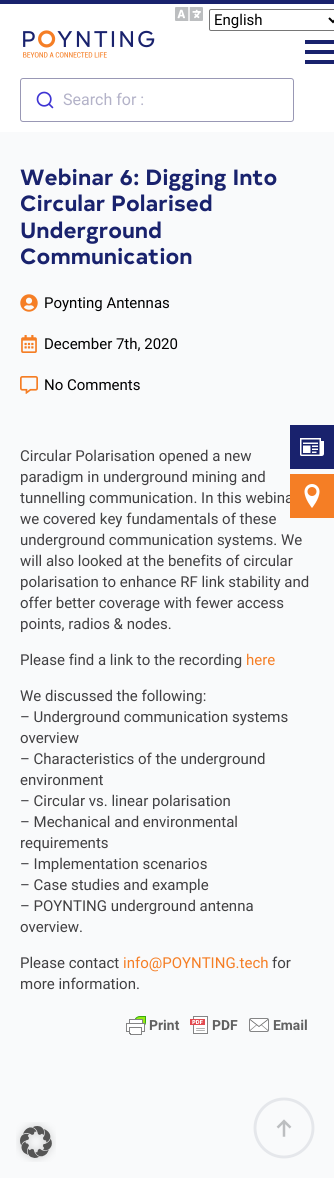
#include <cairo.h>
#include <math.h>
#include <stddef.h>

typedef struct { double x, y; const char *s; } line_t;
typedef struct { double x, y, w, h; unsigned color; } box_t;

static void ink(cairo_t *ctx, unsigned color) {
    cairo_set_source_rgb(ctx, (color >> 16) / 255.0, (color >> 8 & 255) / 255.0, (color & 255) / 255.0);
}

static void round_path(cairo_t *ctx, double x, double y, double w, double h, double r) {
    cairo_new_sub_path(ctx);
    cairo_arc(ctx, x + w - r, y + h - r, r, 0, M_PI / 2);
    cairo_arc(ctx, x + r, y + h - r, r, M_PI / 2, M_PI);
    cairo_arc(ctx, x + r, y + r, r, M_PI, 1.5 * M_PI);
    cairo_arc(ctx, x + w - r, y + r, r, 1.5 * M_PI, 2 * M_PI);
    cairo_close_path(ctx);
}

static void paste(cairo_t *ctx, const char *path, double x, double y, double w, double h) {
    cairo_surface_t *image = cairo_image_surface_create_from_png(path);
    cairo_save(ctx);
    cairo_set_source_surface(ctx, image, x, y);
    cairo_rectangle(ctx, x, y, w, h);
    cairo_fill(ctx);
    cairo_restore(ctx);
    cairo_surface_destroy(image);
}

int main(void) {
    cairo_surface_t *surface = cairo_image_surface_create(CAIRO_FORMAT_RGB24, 334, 1178);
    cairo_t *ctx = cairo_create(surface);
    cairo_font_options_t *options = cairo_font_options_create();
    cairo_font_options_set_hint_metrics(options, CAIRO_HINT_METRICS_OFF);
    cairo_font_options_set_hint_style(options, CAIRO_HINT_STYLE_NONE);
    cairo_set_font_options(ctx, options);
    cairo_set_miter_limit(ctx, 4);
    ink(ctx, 0xF9FAFB);
    cairo_paint(ctx);
    ink(ctx, 0xFFFFFF);
    cairo_rectangle(ctx, 0, 4, 334, 128);
    cairo_fill(ctx);
    ink(ctx, 0x19226D);
    cairo_rectangle(ctx, 0, 0, 334, 4);
    cairo_fill(ctx);
    paste(ctx, "media/1.png", 175, 7, 28, 14);
    round_path(ctx, 209.5, 9.5, 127, 21, 1.5);
    ink(ctx, 0x767676);
    cairo_set_line_width(ctx, 1);
    cairo_stroke(ctx);
    cairo_new_path(ctx);
    cairo_move_to(ctx, 329, 18);
    cairo_line_to(ctx, 333, 22);
    cairo_line_to(ctx, 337, 18);
    ink(ctx, 0x000000);
    cairo_set_line_width(ctx, 2);
    cairo_stroke(ctx);
    cairo_select_font_face(ctx, "Roboto", CAIRO_FONT_SLANT_NORMAL, CAIRO_FONT_WEIGHT_NORMAL);
    cairo_set_font_size(ctx, 15);
    cairo_move_to(ctx, 214, 25);
    cairo_show_text(ctx, "English");
    {
        static const box_t items[] = {
            {305, 50, 29, 4, 0x19226D},
            {305, 40, 29, 4, 0x19226D},
            {305, 60, 29, 4, 0x19226D},
        };
        for (size_t i = 0; i < sizeof items / sizeof *items; i++) {
            ink(ctx, items[i].color);
            cairo_rectangle(ctx, items[i].x, items[i].y, items[i].w, items[i].h);
            cairo_fill(ctx);
        }
    }
    paste(ctx, "media/2.png", 23, 30, 132, 28);
    round_path(ctx, 20.5, 78.5, 273, 43, 2.5);
    ink(ctx, 0x9998B5);
    cairo_set_line_width(ctx, 1);
    cairo_stroke(ctx);
    paste(ctx, "media/3.png", 36, 91, 18, 18);
    cairo_set_font_size(ctx, 16);
    ink(ctx, 0xB3B2C8);
    cairo_move_to(ctx, 63, 105);
    cairo_show_text(ctx, "Search for :");
    ink(ctx, 0x19226D);
    cairo_rectangle(ctx, 290, 425, 44, 44);
    cairo_fill(ctx);
    paste(ctx, "media/4.png", 300, 438, 24, 18);
    cairo_set_font_size(ctx, 15);
    ink(ctx, 0x414042);
    cairo_move_to(ctx, 20, 503);
    cairo_show_text(ctx, "tunnelling communication. In this webina");
    ink(ctx, 0xF57E25);
    cairo_rectangle(ctx, 290, 474, 44, 44);
    cairo_fill(ctx);
    paste(ctx, "media/5.png", 304, 484, 16, 24);
    paste(ctx, "media/6.png", 276, 1119, 16, 18);
    cairo_new_path(ctx);
    cairo_move_to(ctx, 284, 1099);
    cairo_curve_to(ctx, 300, 1099, 313, 1112, 313, 1128);
    cairo_curve_to(ctx, 313, 1144, 300, 1157, 284, 1157);
    cairo_curve_to(ctx, 268, 1157, 255, 1144, 255, 1128);
    cairo_curve_to(ctx, 255, 1112, 268, 1099, 284, 1099);
    ink(ctx, 0xE5E7EB);
    cairo_set_line_width(ctx, 2.9);
    cairo_set_line_cap(ctx, CAIRO_LINE_CAP_ROUND);
    cairo_stroke(ctx);
    cairo_select_font_face(ctx, "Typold", CAIRO_FONT_SLANT_NORMAL, CAIRO_FONT_WEIGHT_BOLD);
    cairo_set_font_size(ctx, 22);
    ink(ctx, 0x19226D);
    {
        static const line_t items[] = {
            {20, 185, "Webinar 6: Digging Into"},
            {20, 211, "Circular Polarised"},
            {20, 238, "Underground"},
            {20, 264, "Communication"},
        };
        for (size_t i = 0; i < sizeof items / sizeof *items; i++) {
            cairo_move_to(ctx, items[i].x, items[i].y);
            cairo_show_text(ctx, items[i].s);
        }
    }
    paste(ctx, "media/7.png", 20, 294, 18, 18);
    cairo_select_font_face(ctx, "Roboto", CAIRO_FONT_SLANT_NORMAL, CAIRO_FONT_WEIGHT_NORMAL);
    cairo_set_font_size(ctx, 15);
    ink(ctx, 0x000000);
    cairo_move_to(ctx, 44, 308);
    cairo_show_text(ctx, "Poynting Antennas");
    paste(ctx, "media/8.png", 21, 335, 16, 18);
    cairo_move_to(ctx, 44, 349);
    cairo_show_text(ctx, "December 7th, 2020");
    paste(ctx, "media/9.png", 20, 376, 18, 18);
    cairo_move_to(ctx, 44, 390);
    cairo_show_text(ctx, "No Comments");
    ink(ctx, 0x414042);
    {
        static const line_t items[] = {
            {20, 461, "Circular Polarisation opened a new"},
            {20, 482, "paradigm in underground mining and"},
            {20, 524, "we covered key fundamentals of these"},
            {20, 545, "underground communication systems. We"},
            {20, 566, "will also looked at the benefits of circular"},
            {20, 587, "polarisation to enhance RF link stability and"},
            {20, 608, "offer better coverage with fewer access"},
            {20, 629, "points, radios & nodes."},
            {20, 665, "Please find a link to the recording"},
        };
        for (size_t i = 0; i < sizeof items / sizeof *items; i++) {
            cairo_move_to(ctx, items[i].x, items[i].y);
            cairo_show_text(ctx, items[i].s);
        }
    }
    ink(ctx, 0xF57E25);
    cairo_move_to(ctx, 246, 665);
    cairo_show_text(ctx, "here");
    ink(ctx, 0x414042);
    {
        static const line_t items[] = {
            {20, 701, "We discussed the following:"},
            {20, 722, "– Underground communication systems"},
            {20, 743, "overview"},
            {20, 764, "– Characteristics of the underground"},
            {20, 785, "environment"},
            {20, 806, "– Circular vs. linear polarisation"},
            {20, 827, "– Mechanical and environmental"},
            {20, 848, "requirements"},
            {20, 869, "– Implementation scenarios"},
            {20, 890, "– Case studies and example"},
            {20, 911, "– POYNTING underground antenna"},
            {20, 932, "overview."},
            {20, 968, "Please contact"},
        };
        for (size_t i = 0; i < sizeof items / sizeof *items; i++) {
            cairo_move_to(ctx, items[i].x, items[i].y);
            cairo_show_text(ctx, items[i].s);
        }
    }
    ink(ctx, 0xF57E25);
    cairo_move_to(ctx, 123, 968);
    cairo_show_text(ctx, "info@POYNTING.tech");
    ink(ctx, 0x414042);
    cairo_move_to(ctx, 272, 968);
    cairo_show_text(ctx, "for");
    cairo_move_to(ctx, 20, 989);
    cairo_show_text(ctx, "more information.");
    paste(ctx, "media/10.png", 126, 1016, 181, 19);
    paste(ctx, "media/11.png", 16, 1122, 40, 40);
    cairo_surface_write_to_png(surface, "image.png");
    cairo_font_options_destroy(options);
    cairo_destroy(ctx);
    cairo_surface_destroy(surface);
    return 0;
}
